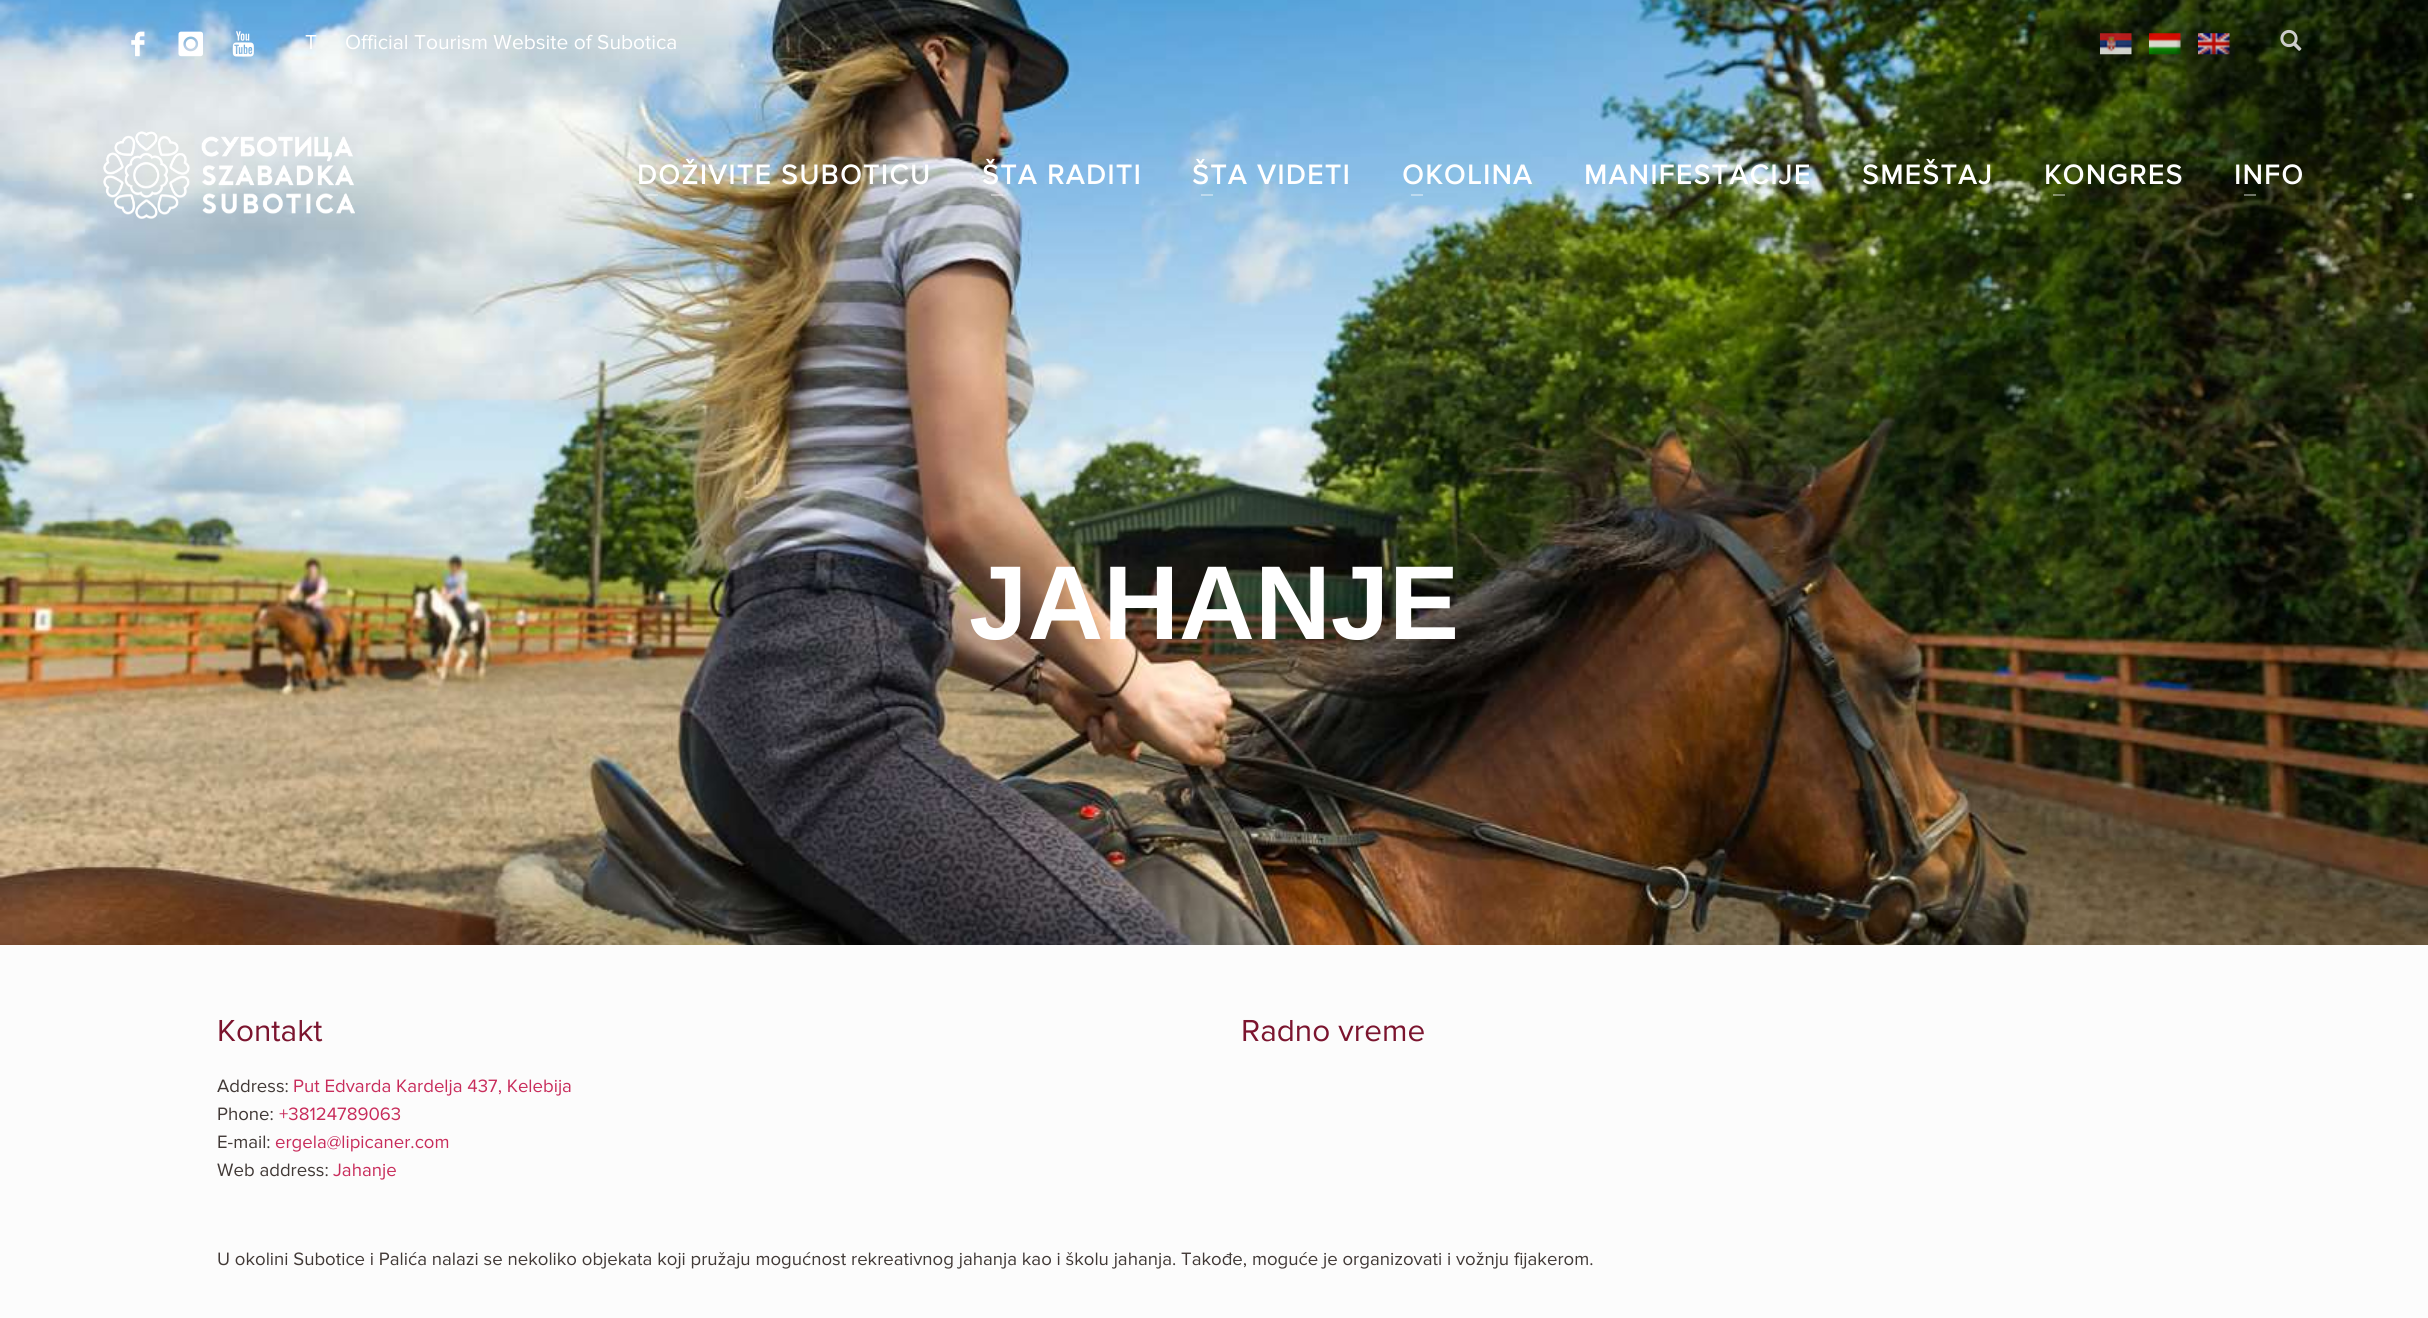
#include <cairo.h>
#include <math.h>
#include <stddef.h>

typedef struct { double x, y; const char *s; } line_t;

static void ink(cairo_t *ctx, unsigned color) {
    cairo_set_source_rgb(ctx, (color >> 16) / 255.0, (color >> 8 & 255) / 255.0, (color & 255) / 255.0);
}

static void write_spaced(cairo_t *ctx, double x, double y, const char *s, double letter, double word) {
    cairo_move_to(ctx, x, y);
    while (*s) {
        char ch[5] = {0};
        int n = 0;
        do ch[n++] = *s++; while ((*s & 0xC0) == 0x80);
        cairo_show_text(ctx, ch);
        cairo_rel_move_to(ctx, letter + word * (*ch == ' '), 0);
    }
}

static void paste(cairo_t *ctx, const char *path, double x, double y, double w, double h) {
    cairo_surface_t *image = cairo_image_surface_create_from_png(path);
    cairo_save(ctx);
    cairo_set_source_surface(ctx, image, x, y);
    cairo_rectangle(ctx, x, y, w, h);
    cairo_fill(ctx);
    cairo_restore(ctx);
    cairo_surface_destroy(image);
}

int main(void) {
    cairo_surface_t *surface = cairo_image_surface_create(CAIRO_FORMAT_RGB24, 2428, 1318);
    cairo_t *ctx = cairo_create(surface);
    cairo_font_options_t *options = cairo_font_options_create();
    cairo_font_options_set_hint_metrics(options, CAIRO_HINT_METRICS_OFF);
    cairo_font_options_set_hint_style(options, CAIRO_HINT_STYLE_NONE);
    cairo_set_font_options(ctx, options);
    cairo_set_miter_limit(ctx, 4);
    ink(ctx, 0xFFFFFF);
    cairo_paint(ctx);
    paste(ctx, "media/9.png", 0, 0, 2428, 945);
    paste(ctx, "media/1.png", 131, 31, 14, 26);
    paste(ctx, "media/2.png", 178, 31, 25, 26);
    paste(ctx, "media/3.png", 232, 31, 22, 26);
    cairo_select_font_face(ctx, "Proxima Nova", CAIRO_FONT_SLANT_NORMAL, CAIRO_FONT_WEIGHT_NORMAL);
    cairo_set_font_size(ctx, 21);
    ink(ctx, 0xFFFFFF);
    cairo_move_to(ctx, 305, 49);
    cairo_show_text(ctx, "T");
    cairo_move_to(ctx, 345, 49);
    cairo_show_text(ctx, "Official Tourism Website of Subotica");
    paste(ctx, "media/4.png", 2100, 33, 32, 22);
    paste(ctx, "media/5.png", 2149, 33, 32, 22);
    paste(ctx, "media/6.png", 2198, 33, 32, 22);
    paste(ctx, "media/7.png", 2280, 29, 22, 22);
    paste(ctx, "media/8.png", 103, 131, 252, 88);
    cairo_select_font_face(ctx, "Proxima Nova", CAIRO_FONT_SLANT_NORMAL, CAIRO_FONT_WEIGHT_BOLD);
    cairo_set_font_size(ctx, 28);
    write_spaced(ctx, 637, 184, "DOŽIVITE SUBOTICU", 1.75, 0);
    cairo_set_source_rgba(ctx, 1, 1, 1, 0.4);
    cairo_rectangle(ctx, 646, 194, 12, 2);
    cairo_fill(ctx);
    ink(ctx, 0xFFFFFF);
    write_spaced(ctx, 982, 184, "ŠTA RADITI", 1.75, 0);
    cairo_set_source_rgba(ctx, 1, 1, 1, 0.4);
    cairo_rectangle(ctx, 991, 194, 12, 2);
    cairo_fill(ctx);
    ink(ctx, 0xFFFFFF);
    write_spaced(ctx, 1192, 184, "ŠTA VIDETI", 1.75, 0);
    cairo_set_source_rgba(ctx, 1, 1, 1, 0.4);
    cairo_rectangle(ctx, 1201, 194, 12, 2);
    cairo_fill(ctx);
    ink(ctx, 0xFFFFFF);
    write_spaced(ctx, 1402, 184, "OKOLINA", 1.75, 0);
    ink(ctx, 0xBDDBF0);
    cairo_rectangle(ctx, 1411, 194, 12, 2);
    cairo_fill(ctx);
    ink(ctx, 0xFFFFFF);
    {
        static const line_t items[] = {
            {1584, 184, "MANIFESTACIJE"},
            {1862, 184, "SMEŠTAJ"},
            {2044, 184, "KONGRES"},
        };
        for (size_t i = 0; i < sizeof items / sizeof *items; i++) {
            write_spaced(ctx, items[i].x, items[i].y, items[i].s, 1.75, 0);
        }
    }
    cairo_set_source_rgba(ctx, 1, 1, 1, 0.4);
    cairo_rectangle(ctx, 2053, 194, 12, 2);
    cairo_fill(ctx);
    ink(ctx, 0xFFFFFF);
    write_spaced(ctx, 2234, 184, "INFO", 1.75, 0);
    cairo_set_source_rgba(ctx, 1, 1, 1, 0.4);
    cairo_rectangle(ctx, 2244, 194, 12, 2);
    cairo_fill(ctx);
    cairo_select_font_face(ctx, "Liberation Sans", CAIRO_FONT_SLANT_NORMAL, CAIRO_FONT_WEIGHT_BOLD);
    cairo_set_font_size(ctx, 105);
    ink(ctx, 0xFFFFFF);
    cairo_move_to(ctx, 969, 639);
    cairo_show_text(ctx, "JAHANJE");
    ink(ctx, 0xFCFCFC);
    cairo_rectangle(ctx, 0, 945, 2428, 373);
    cairo_fill(ctx);
    cairo_select_font_face(ctx, "Proxima Nova", CAIRO_FONT_SLANT_NORMAL, CAIRO_FONT_WEIGHT_NORMAL);
    cairo_set_font_size(ctx, 31.5);
    ink(ctx, 0x7B142E);
    cairo_move_to(ctx, 217, 1041);
    cairo_show_text(ctx, "Kontakt");
    cairo_set_font_size(ctx, 18.6);
    ink(ctx, 0x413936);
    cairo_move_to(ctx, 217, 1092);
    cairo_show_text(ctx, "Address:");
    ink(ctx, 0xC82C5B);
    cairo_move_to(ctx, 293, 1092);
    cairo_show_text(ctx, "Put Edvarda Kardelja 437, Kelebija");
    ink(ctx, 0x413936);
    cairo_move_to(ctx, 217, 1120);
    cairo_show_text(ctx, "Phone:");
    ink(ctx, 0xC82C5B);
    cairo_move_to(ctx, 279, 1120);
    cairo_show_text(ctx, "+38124789063");
    ink(ctx, 0x413936);
    cairo_move_to(ctx, 217, 1148);
    cairo_show_text(ctx, "E-mail:");
    ink(ctx, 0xC82C5B);
    cairo_move_to(ctx, 275, 1148);
    cairo_show_text(ctx, "ergela@lipicaner.com");
    ink(ctx, 0x413936);
    cairo_move_to(ctx, 217, 1176);
    cairo_show_text(ctx, "Web address:");
    ink(ctx, 0xC82C5B);
    cairo_move_to(ctx, 333, 1176);
    cairo_show_text(ctx, "Jahanje");
    cairo_set_font_size(ctx, 31.5);
    ink(ctx, 0x7B142E);
    cairo_move_to(ctx, 1241, 1041);
    cairo_show_text(ctx, "Radno vreme");
    cairo_set_font_size(ctx, 18.6);
    ink(ctx, 0x413936);
    cairo_move_to(ctx, 217, 1265);
    cairo_show_text(ctx, "U okolini Subotice i Palića nalazi se nekoliko objekata koji pružaju mogućnost rekreativnog jahanja kao i školu jahanja. Takođe, moguće je organizovati i vožnju fijakerom.");
    cairo_surface_write_to_png(surface, "image.png");
    cairo_font_options_destroy(options);
    cairo_destroy(ctx);
    cairo_surface_destroy(surface);
    return 0;
}
